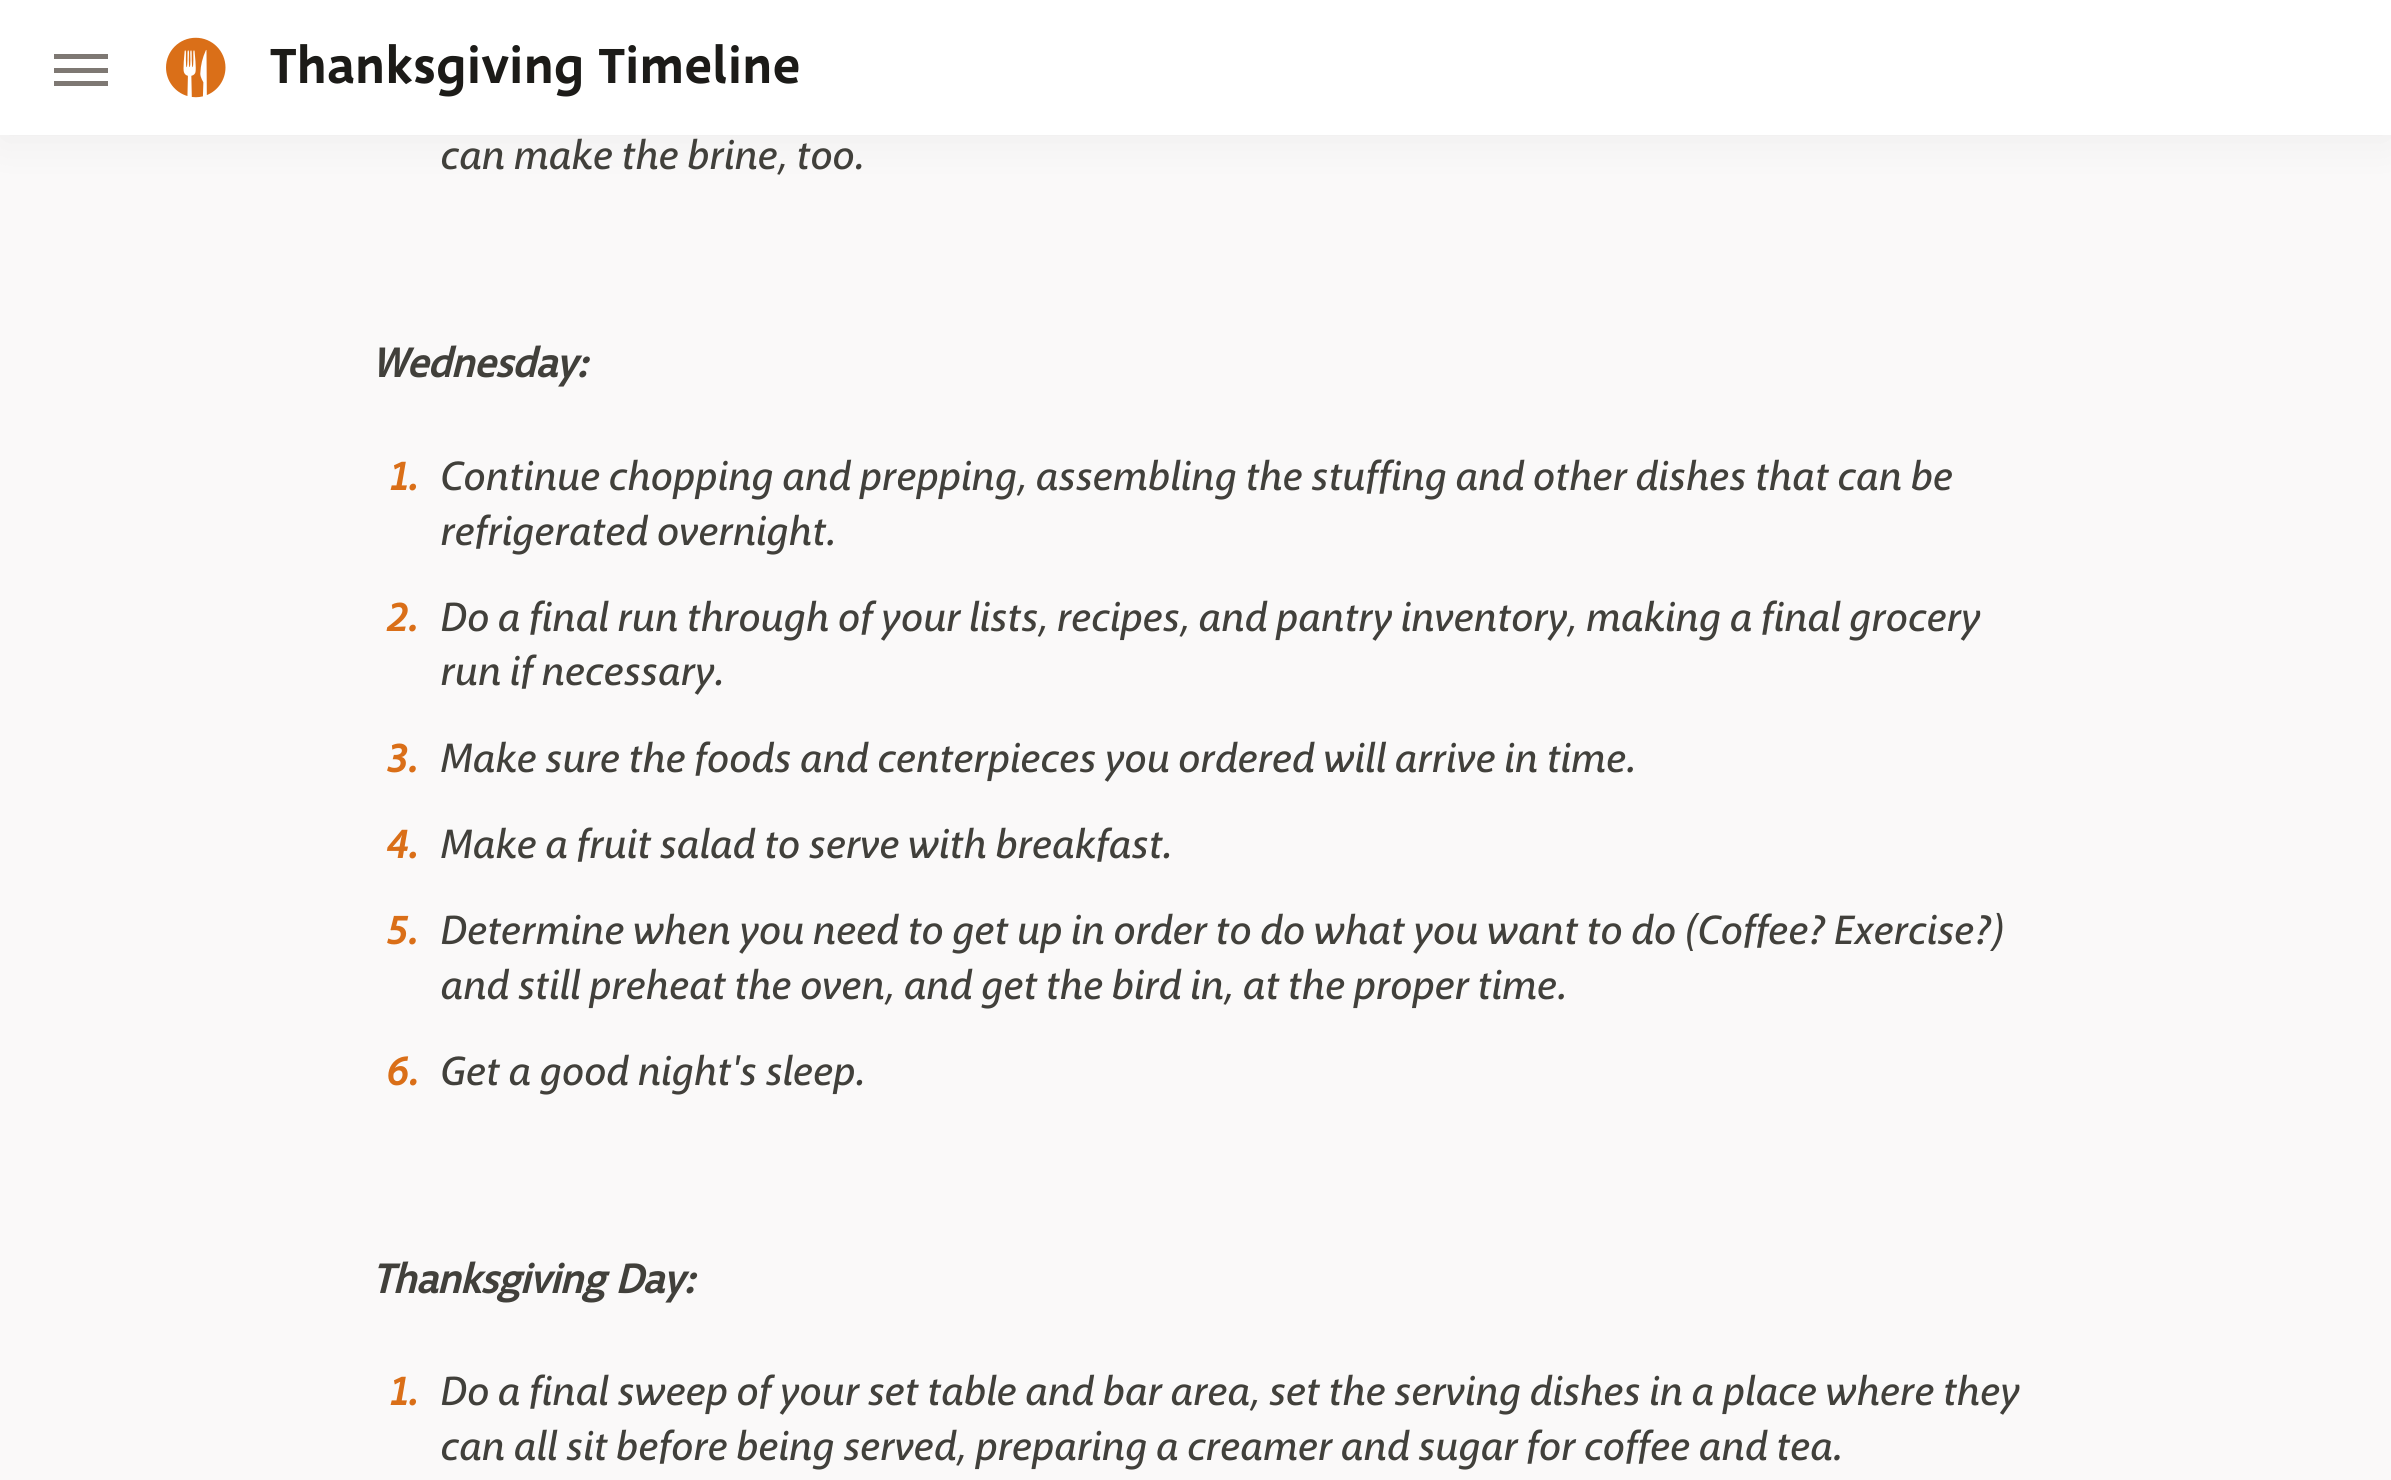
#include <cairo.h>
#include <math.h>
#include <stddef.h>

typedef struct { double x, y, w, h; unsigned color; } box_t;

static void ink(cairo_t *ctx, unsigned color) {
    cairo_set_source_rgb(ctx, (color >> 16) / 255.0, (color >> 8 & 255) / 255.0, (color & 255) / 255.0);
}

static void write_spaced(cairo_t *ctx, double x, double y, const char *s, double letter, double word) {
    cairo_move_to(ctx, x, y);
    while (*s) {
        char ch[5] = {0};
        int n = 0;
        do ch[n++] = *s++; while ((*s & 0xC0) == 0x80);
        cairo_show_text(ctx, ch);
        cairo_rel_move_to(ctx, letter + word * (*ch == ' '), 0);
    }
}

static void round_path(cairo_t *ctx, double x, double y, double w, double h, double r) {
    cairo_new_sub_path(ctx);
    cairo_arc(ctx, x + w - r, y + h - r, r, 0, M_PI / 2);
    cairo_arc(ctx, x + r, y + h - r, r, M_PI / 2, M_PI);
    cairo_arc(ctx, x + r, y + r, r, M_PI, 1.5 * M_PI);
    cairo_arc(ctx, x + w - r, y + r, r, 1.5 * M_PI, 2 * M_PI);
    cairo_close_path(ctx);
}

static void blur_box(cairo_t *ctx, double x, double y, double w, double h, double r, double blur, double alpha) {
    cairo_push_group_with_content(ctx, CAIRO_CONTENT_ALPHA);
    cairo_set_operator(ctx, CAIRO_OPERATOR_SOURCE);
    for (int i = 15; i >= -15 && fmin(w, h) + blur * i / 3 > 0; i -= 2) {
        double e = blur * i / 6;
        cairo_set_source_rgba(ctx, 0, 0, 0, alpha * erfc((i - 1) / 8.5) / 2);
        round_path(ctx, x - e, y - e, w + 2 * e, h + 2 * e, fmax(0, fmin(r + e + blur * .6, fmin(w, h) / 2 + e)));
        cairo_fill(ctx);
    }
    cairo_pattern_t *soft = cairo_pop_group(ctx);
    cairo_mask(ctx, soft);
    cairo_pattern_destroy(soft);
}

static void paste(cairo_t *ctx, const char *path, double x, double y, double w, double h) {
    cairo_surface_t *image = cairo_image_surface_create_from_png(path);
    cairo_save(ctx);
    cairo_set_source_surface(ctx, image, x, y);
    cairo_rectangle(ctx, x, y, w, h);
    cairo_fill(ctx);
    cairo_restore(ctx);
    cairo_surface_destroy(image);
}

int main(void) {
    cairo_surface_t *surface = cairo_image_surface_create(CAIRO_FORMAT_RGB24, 2391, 1480);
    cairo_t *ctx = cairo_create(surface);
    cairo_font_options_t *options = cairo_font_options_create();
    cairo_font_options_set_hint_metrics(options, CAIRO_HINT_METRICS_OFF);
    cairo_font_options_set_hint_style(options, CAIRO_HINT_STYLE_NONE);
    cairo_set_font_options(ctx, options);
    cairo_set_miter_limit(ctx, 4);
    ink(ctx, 0xFAF9F9);
    cairo_paint(ctx);
    ink(ctx, 0x000000);
    blur_box(ctx, 0, 5, 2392, 135, 0, 22.5, 0.05);
    {
        static const box_t items[] = {
            {0, 0, 2391, 135, 0xFFFFFF},
            {54, 54, 54, 5, 0x7E7873},
            {54, 68, 54, 5, 0x7E7873},
            {54, 81, 54, 5, 0x7E7873},
        };
        for (size_t i = 0; i < sizeof items / sizeof *items; i++) {
            ink(ctx, items[i].color);
            cairo_rectangle(ctx, items[i].x, items[i].y, items[i].w, items[i].h);
            cairo_fill(ctx);
        }
    }
    paste(ctx, "media/1.png", 166, 37, 60, 61);
    cairo_select_font_face(ctx, "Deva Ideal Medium", CAIRO_FONT_SLANT_NORMAL, CAIRO_FONT_WEIGHT_NORMAL);
    cairo_set_font_size(ctx, 54);
    ink(ctx, 0x1C1B18);
    cairo_move_to(ctx, 270, 83);
    cairo_show_text(ctx, "Thanksgiving Timeline");
    cairo_select_font_face(ctx, "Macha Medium", CAIRO_FONT_SLANT_NORMAL, CAIRO_FONT_WEIGHT_NORMAL);
    cairo_set_font_size(ctx, 40.5);
    ink(ctx, 0x41403B);
    write_spaced(ctx, 440, 169, "can make the brine, too.", 0.23, 0);
    cairo_select_font_face(ctx, "Macha", CAIRO_FONT_SLANT_ITALIC, CAIRO_FONT_WEIGHT_BOLD);
    cairo_move_to(ctx, 372, 377);
    cairo_show_text(ctx, "Wednesday:");
    cairo_select_font_face(ctx, "Macha", CAIRO_FONT_SLANT_NORMAL, CAIRO_FONT_WEIGHT_BOLD);
    ink(ctx, 0xDA6F18);
    write_spaced(ctx, 389, 490, "1.", 0.23, 0);
    cairo_select_font_face(ctx, "Macha Medium", CAIRO_FONT_SLANT_NORMAL, CAIRO_FONT_WEIGHT_NORMAL);
    ink(ctx, 0x41403B);
    write_spaced(ctx, 440, 490, "Continue chopping and prepping, assembling the stuffing and other dishes that can be", 0.23, 0);
    write_spaced(ctx, 440, 545, "refrigerated overnight.", 0.23, 0);
    cairo_select_font_face(ctx, "Macha", CAIRO_FONT_SLANT_NORMAL, CAIRO_FONT_WEIGHT_BOLD);
    ink(ctx, 0xDA6F18);
    write_spaced(ctx, 386, 631, "2.", 0.23, 0);
    cairo_select_font_face(ctx, "Macha Medium", CAIRO_FONT_SLANT_NORMAL, CAIRO_FONT_WEIGHT_NORMAL);
    ink(ctx, 0x41403B);
    write_spaced(ctx, 440, 631, "Do a final run through of your lists, recipes, and pantry inventory, making a final grocery", 0.23, 0);
    write_spaced(ctx, 440, 685, "run if necessary.", 0.23, 0);
    cairo_select_font_face(ctx, "Macha", CAIRO_FONT_SLANT_NORMAL, CAIRO_FONT_WEIGHT_BOLD);
    ink(ctx, 0xDA6F18);
    write_spaced(ctx, 386, 772, "3.", 0.23, 0);
    cairo_select_font_face(ctx, "Macha Medium", CAIRO_FONT_SLANT_NORMAL, CAIRO_FONT_WEIGHT_NORMAL);
    ink(ctx, 0x41403B);
    write_spaced(ctx, 440, 772, "Make sure the foods and centerpieces you ordered will arrive in time.", 0.23, 0);
    cairo_select_font_face(ctx, "Macha", CAIRO_FONT_SLANT_NORMAL, CAIRO_FONT_WEIGHT_BOLD);
    ink(ctx, 0xDA6F18);
    write_spaced(ctx, 386, 858, "4.", 0.23, 0);
    cairo_select_font_face(ctx, "Macha Medium", CAIRO_FONT_SLANT_NORMAL, CAIRO_FONT_WEIGHT_NORMAL);
    ink(ctx, 0x41403B);
    write_spaced(ctx, 440, 858, "Make a fruit salad to serve with breakfast.", 0.23, 0);
    cairo_select_font_face(ctx, "Macha", CAIRO_FONT_SLANT_NORMAL, CAIRO_FONT_WEIGHT_BOLD);
    ink(ctx, 0xDA6F18);
    write_spaced(ctx, 386, 944, "5.", 0.23, 0);
    cairo_select_font_face(ctx, "Macha Medium", CAIRO_FONT_SLANT_NORMAL, CAIRO_FONT_WEIGHT_NORMAL);
    ink(ctx, 0x41403B);
    write_spaced(ctx, 440, 944, "Determine when you need to get up in order to do what you want to do (Coffee? Exercise?)", 0.23, 0);
    write_spaced(ctx, 440, 999, "and still preheat the oven, and get the bird in, at the proper time.", 0.23, 0);
    cairo_select_font_face(ctx, "Macha", CAIRO_FONT_SLANT_NORMAL, CAIRO_FONT_WEIGHT_BOLD);
    ink(ctx, 0xDA6F18);
    write_spaced(ctx, 386, 1085, "6.", 0.23, 0);
    cairo_select_font_face(ctx, "Macha Medium", CAIRO_FONT_SLANT_NORMAL, CAIRO_FONT_WEIGHT_NORMAL);
    ink(ctx, 0x41403B);
    write_spaced(ctx, 440, 1085, "Get a good night's sleep.", 0.23, 0);
    cairo_select_font_face(ctx, "Macha", CAIRO_FONT_SLANT_ITALIC, CAIRO_FONT_WEIGHT_BOLD);
    cairo_move_to(ctx, 372, 1293);
    cairo_show_text(ctx, "Thanksgiving Day:");
    cairo_select_font_face(ctx, "Macha", CAIRO_FONT_SLANT_NORMAL, CAIRO_FONT_WEIGHT_BOLD);
    ink(ctx, 0xDA6F18);
    write_spaced(ctx, 389, 1405, "1.", 0.23, 0);
    cairo_select_font_face(ctx, "Macha Medium", CAIRO_FONT_SLANT_NORMAL, CAIRO_FONT_WEIGHT_NORMAL);
    ink(ctx, 0x41403B);
    write_spaced(ctx, 440, 1405, "Do a final sweep of your set table and bar area, set the serving dishes in a place where they", 0.23, 0);
    write_spaced(ctx, 440, 1460, "can all sit before being served, preparing a creamer and sugar for coffee and tea.", 0.23, 0);
    cairo_surface_write_to_png(surface, "image.png");
    cairo_font_options_destroy(options);
    cairo_destroy(ctx);
    cairo_surface_destroy(surface);
    return 0;
}
